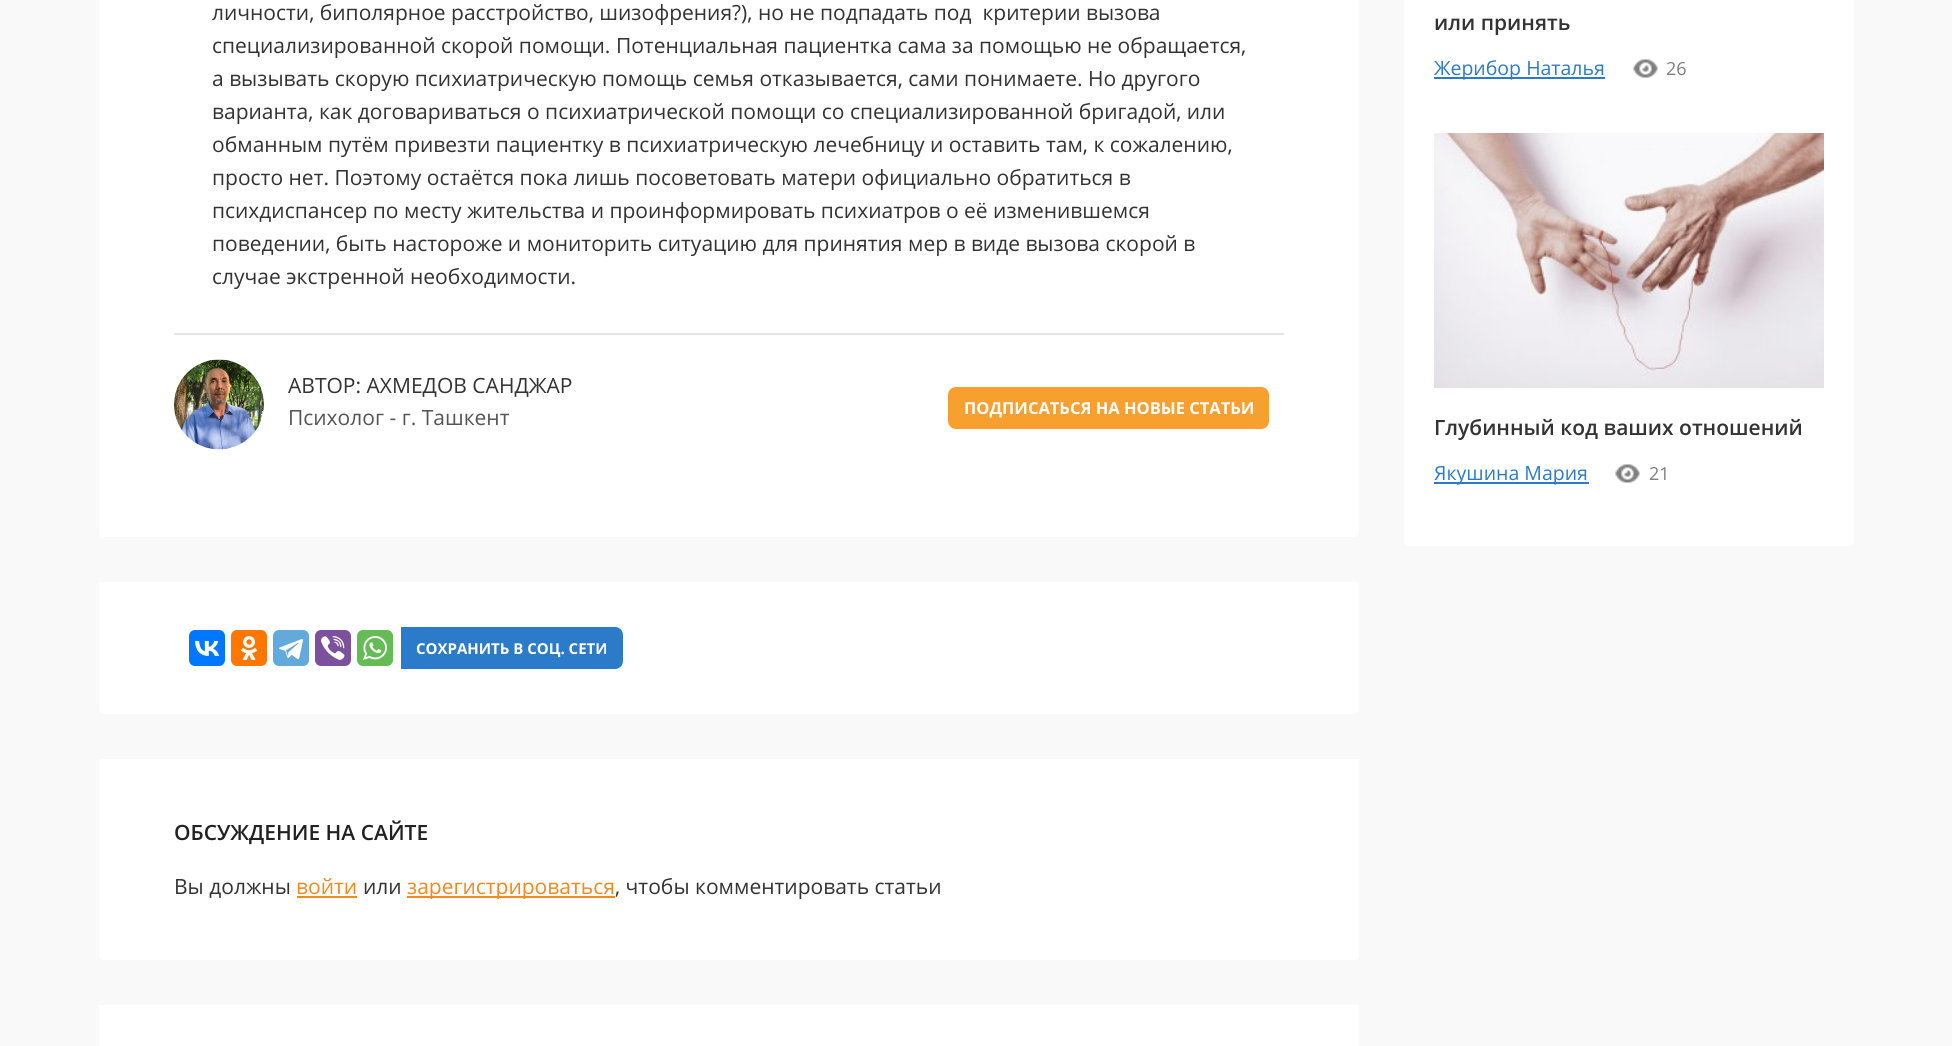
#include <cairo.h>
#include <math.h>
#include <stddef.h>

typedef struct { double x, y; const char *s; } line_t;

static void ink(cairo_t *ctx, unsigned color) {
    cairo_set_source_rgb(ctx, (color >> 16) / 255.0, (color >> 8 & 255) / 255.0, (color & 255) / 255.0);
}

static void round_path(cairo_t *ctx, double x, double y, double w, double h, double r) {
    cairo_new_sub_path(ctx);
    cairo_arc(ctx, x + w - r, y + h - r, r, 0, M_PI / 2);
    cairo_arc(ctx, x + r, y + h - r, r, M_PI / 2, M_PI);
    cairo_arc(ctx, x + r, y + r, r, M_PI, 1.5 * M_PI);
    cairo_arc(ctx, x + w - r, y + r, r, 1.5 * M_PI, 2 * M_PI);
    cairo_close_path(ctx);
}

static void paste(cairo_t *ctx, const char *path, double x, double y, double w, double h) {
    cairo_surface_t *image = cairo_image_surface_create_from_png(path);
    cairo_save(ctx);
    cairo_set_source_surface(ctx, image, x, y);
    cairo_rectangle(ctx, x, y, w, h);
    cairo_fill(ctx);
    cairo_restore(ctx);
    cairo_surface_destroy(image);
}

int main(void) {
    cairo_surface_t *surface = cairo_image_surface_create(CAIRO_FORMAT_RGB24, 1952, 1046);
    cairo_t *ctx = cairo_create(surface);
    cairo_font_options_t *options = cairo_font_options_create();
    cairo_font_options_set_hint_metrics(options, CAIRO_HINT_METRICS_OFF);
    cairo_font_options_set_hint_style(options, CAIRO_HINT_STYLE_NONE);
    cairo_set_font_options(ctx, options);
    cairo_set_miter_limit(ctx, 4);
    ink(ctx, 0xF9F9FA);
    cairo_paint(ctx);
    ink(ctx, 0xFFFFFF);
    cairo_new_path(ctx);
    cairo_move_to(ctx, 99, -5);
    cairo_line_to(ctx, 1359, -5);
    cairo_line_to(ctx, 1359, 532);
    cairo_curve_to(ctx, 1359, 535, 1357, 537, 1354, 537);
    cairo_line_to(ctx, 104, 537);
    cairo_curve_to(ctx, 101, 537, 99, 535, 99, 532);
    cairo_close_path(ctx);
    cairo_fill(ctx);
    cairo_select_font_face(ctx, "Open Sans", CAIRO_FONT_SLANT_NORMAL, CAIRO_FONT_WEIGHT_NORMAL);
    cairo_set_font_size(ctx, 21);
    ink(ctx, 0x333333);
    {
        static const line_t items[] = {
            {212, 20, "личности, биполярное расстройство, шизофрения?), но не подпадать под  критерии вызова"},
            {212, 53, "специализированной скорой помощи. Потенциальная пациентка сама за помощью не обращается,"},
            {212, 86, "а вызывать скорую психиатрическую помощь семья отказывается, сами понимаете. Но другого"},
            {212, 119, "варианта, как договариваться о психиатрической помощи со специализированной бригадой, или"},
            {212, 152, "обманным путём привезти пациентку в психиатрическую лечебницу и оставить там, к сожалению,"},
            {212, 185, "просто нет. Поэтому остаётся пока лишь посоветовать матери официально обратиться в"},
            {212, 218, "психдиспансер по месту жительства и проинформировать психиатров о её изменившемся"},
            {212, 251, "поведении, быть настороже и мониторить ситуацию для принятия мер в виде вызова скорой в"},
            {212, 284, "случае экстренной необходимости."},
        };
        for (size_t i = 0; i < sizeof items / sizeof *items; i++) {
            cairo_move_to(ctx, items[i].x, items[i].y);
            cairo_show_text(ctx, items[i].s);
        }
    }
    ink(ctx, 0xE5E5E5);
    cairo_rectangle(ctx, 174, 333, 1110, 2);
    cairo_fill(ctx);
    paste(ctx, "media/1.png", 174, 359, 90, 91);
    ink(ctx, 0x333333);
    cairo_move_to(ctx, 288, 393);
    cairo_show_text(ctx, "АВТОР: АХМЕДОВ САНДЖАР");
    ink(ctx, 0x555555);
    cairo_move_to(ctx, 288, 425);
    cairo_show_text(ctx, "Психолог - г. Ташкент");
    ink(ctx, 0xF7A02F);
    round_path(ctx, 948, 387, 321, 42, 8);
    cairo_fill(ctx);
    cairo_select_font_face(ctx, "Open Sans", CAIRO_FONT_SLANT_NORMAL, CAIRO_FONT_WEIGHT_BOLD);
    cairo_set_font_size(ctx, 16.5);
    ink(ctx, 0xFFFFFF);
    cairo_move_to(ctx, 964, 414);
    cairo_show_text(ctx, "ПОДПИСАТЬСЯ НА НОВЫЕ СТАТЬИ");
    cairo_new_path(ctx);
    cairo_move_to(ctx, 99, 582);
    cairo_line_to(ctx, 1359, 582);
    cairo_line_to(ctx, 1359, 709);
    cairo_curve_to(ctx, 1359, 712, 1357, 714, 1354, 714);
    cairo_line_to(ctx, 104, 714);
    cairo_curve_to(ctx, 101, 714, 99, 712, 99, 709);
    cairo_close_path(ctx);
    cairo_fill(ctx);
    ink(ctx, 0x0077FF);
    round_path(ctx, 189, 630, 36, 36, 6);
    cairo_fill(ctx);
    paste(ctx, "media/2.png", 195, 640, 24, 16);
    ink(ctx, 0xFF7700);
    round_path(ctx, 231, 630, 36, 36, 6);
    cairo_fill(ctx);
    paste(ctx, "media/3.png", 241, 636, 17, 24);
    ink(ctx, 0x64A9DC);
    round_path(ctx, 273, 630, 36, 36, 6);
    cairo_fill(ctx);
    paste(ctx, "media/4.png", 279, 639, 24, 21);
    ink(ctx, 0x7B519D);
    round_path(ctx, 315, 630, 36, 36, 6);
    cairo_fill(ctx);
    paste(ctx, "media/5.png", 321, 636, 24, 24);
    ink(ctx, 0x65BC54);
    round_path(ctx, 357, 630, 36, 36, 6);
    cairo_fill(ctx);
    paste(ctx, "media/6.png", 363, 636, 24, 24);
    ink(ctx, 0x2C7BCA);
    cairo_new_path(ctx);
    cairo_move_to(ctx, 401, 627);
    cairo_line_to(ctx, 615, 627);
    cairo_curve_to(ctx, 619.5, 627, 623, 630.5, 623, 635);
    cairo_line_to(ctx, 623, 661);
    cairo_curve_to(ctx, 623, 665.5, 619.5, 669, 615, 669);
    cairo_line_to(ctx, 401, 669);
    cairo_close_path(ctx);
    cairo_fill(ctx);
    cairo_set_font_size(ctx, 15);
    ink(ctx, 0xFFFFFF);
    cairo_move_to(ctx, 416, 654);
    cairo_show_text(ctx, "СОХРАНИТЬ В СОЦ. СЕТИ");
    cairo_new_path(ctx);
    cairo_move_to(ctx, 99, 759);
    cairo_line_to(ctx, 1359, 759);
    cairo_line_to(ctx, 1359, 955);
    cairo_curve_to(ctx, 1359, 958, 1357, 960, 1354, 960);
    cairo_line_to(ctx, 104, 960);
    cairo_curve_to(ctx, 101, 960, 99, 958, 99, 955);
    cairo_close_path(ctx);
    cairo_fill(ctx);
    cairo_select_font_face(ctx, "Open Sans SemiBold", CAIRO_FONT_SLANT_NORMAL, CAIRO_FONT_WEIGHT_NORMAL);
    cairo_set_font_size(ctx, 21);
    ink(ctx, 0x212121);
    cairo_move_to(ctx, 174, 840);
    cairo_show_text(ctx, "ОБСУЖДЕНИЕ НА САЙТЕ");
    cairo_select_font_face(ctx, "Open Sans", CAIRO_FONT_SLANT_NORMAL, CAIRO_FONT_WEIGHT_NORMAL);
    ink(ctx, 0x333333);
    cairo_move_to(ctx, 174, 894);
    cairo_show_text(ctx, "Вы должны");
    ink(ctx, 0xF5881E);
    cairo_move_to(ctx, 296, 894);
    cairo_show_text(ctx, "войти");
    cairo_rectangle(ctx, 297, 896, 60, 2);
    cairo_fill(ctx);
    ink(ctx, 0x333333);
    cairo_move_to(ctx, 363, 894);
    cairo_show_text(ctx, "или");
    ink(ctx, 0xF5881E);
    cairo_rectangle(ctx, 407, 896, 208, 2);
    cairo_fill(ctx);
    cairo_move_to(ctx, 407, 894);
    cairo_show_text(ctx, "зарегистрироваться");
    ink(ctx, 0x333333);
    cairo_move_to(ctx, 615, 894);
    cairo_show_text(ctx, ", чтобы комментировать статьи");
    ink(ctx, 0xFFFFFF);
    cairo_rectangle(ctx, 99, 1005, 1260, 41);
    cairo_fill(ctx);
    round_path(ctx, 1404, -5, 450, 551, 5);
    cairo_fill(ctx);
    cairo_select_font_face(ctx, "Open Sans SemiBold", CAIRO_FONT_SLANT_NORMAL, CAIRO_FONT_WEIGHT_NORMAL);
    ink(ctx, 0x333333);
    cairo_move_to(ctx, 1434, 30);
    cairo_show_text(ctx, "или принять");
    ink(ctx, 0x2C7BCA);
    cairo_rectangle(ctx, 1434, 77, 171, 2);
    cairo_fill(ctx);
    cairo_select_font_face(ctx, "Open Sans", CAIRO_FONT_SLANT_NORMAL, CAIRO_FONT_WEIGHT_NORMAL);
    cairo_set_font_size(ctx, 19.5);
    cairo_move_to(ctx, 1434, 75);
    cairo_show_text(ctx, "Жерибор Наталья");
    paste(ctx, "media/7.png", 1633, 59, 25, 19);
    cairo_set_font_size(ctx, 18);
    ink(ctx, 0x7F7F7F);
    cairo_move_to(ctx, 1666, 75);
    cairo_show_text(ctx, "26");
    paste(ctx, "media/8.png", 1434, 133, 390, 255);
    cairo_select_font_face(ctx, "Open Sans SemiBold", CAIRO_FONT_SLANT_NORMAL, CAIRO_FONT_WEIGHT_NORMAL);
    cairo_set_font_size(ctx, 21);
    ink(ctx, 0x333333);
    cairo_move_to(ctx, 1434, 435);
    cairo_show_text(ctx, "Глубинный код ваших отношений");
    ink(ctx, 0x2C7BCA);
    cairo_rectangle(ctx, 1434, 482, 155, 2);
    cairo_fill(ctx);
    cairo_select_font_face(ctx, "Open Sans", CAIRO_FONT_SLANT_NORMAL, CAIRO_FONT_WEIGHT_NORMAL);
    cairo_set_font_size(ctx, 19.5);
    cairo_move_to(ctx, 1434, 480);
    cairo_show_text(ctx, "Якушина Мария");
    paste(ctx, "media/7.png", 1615, 464, 25, 19);
    cairo_set_font_size(ctx, 18);
    ink(ctx, 0x7F7F7F);
    cairo_move_to(ctx, 1649, 480);
    cairo_show_text(ctx, "21");
    cairo_surface_write_to_png(surface, "image.png");
    cairo_font_options_destroy(options);
    cairo_destroy(ctx);
    cairo_surface_destroy(surface);
    return 0;
}
